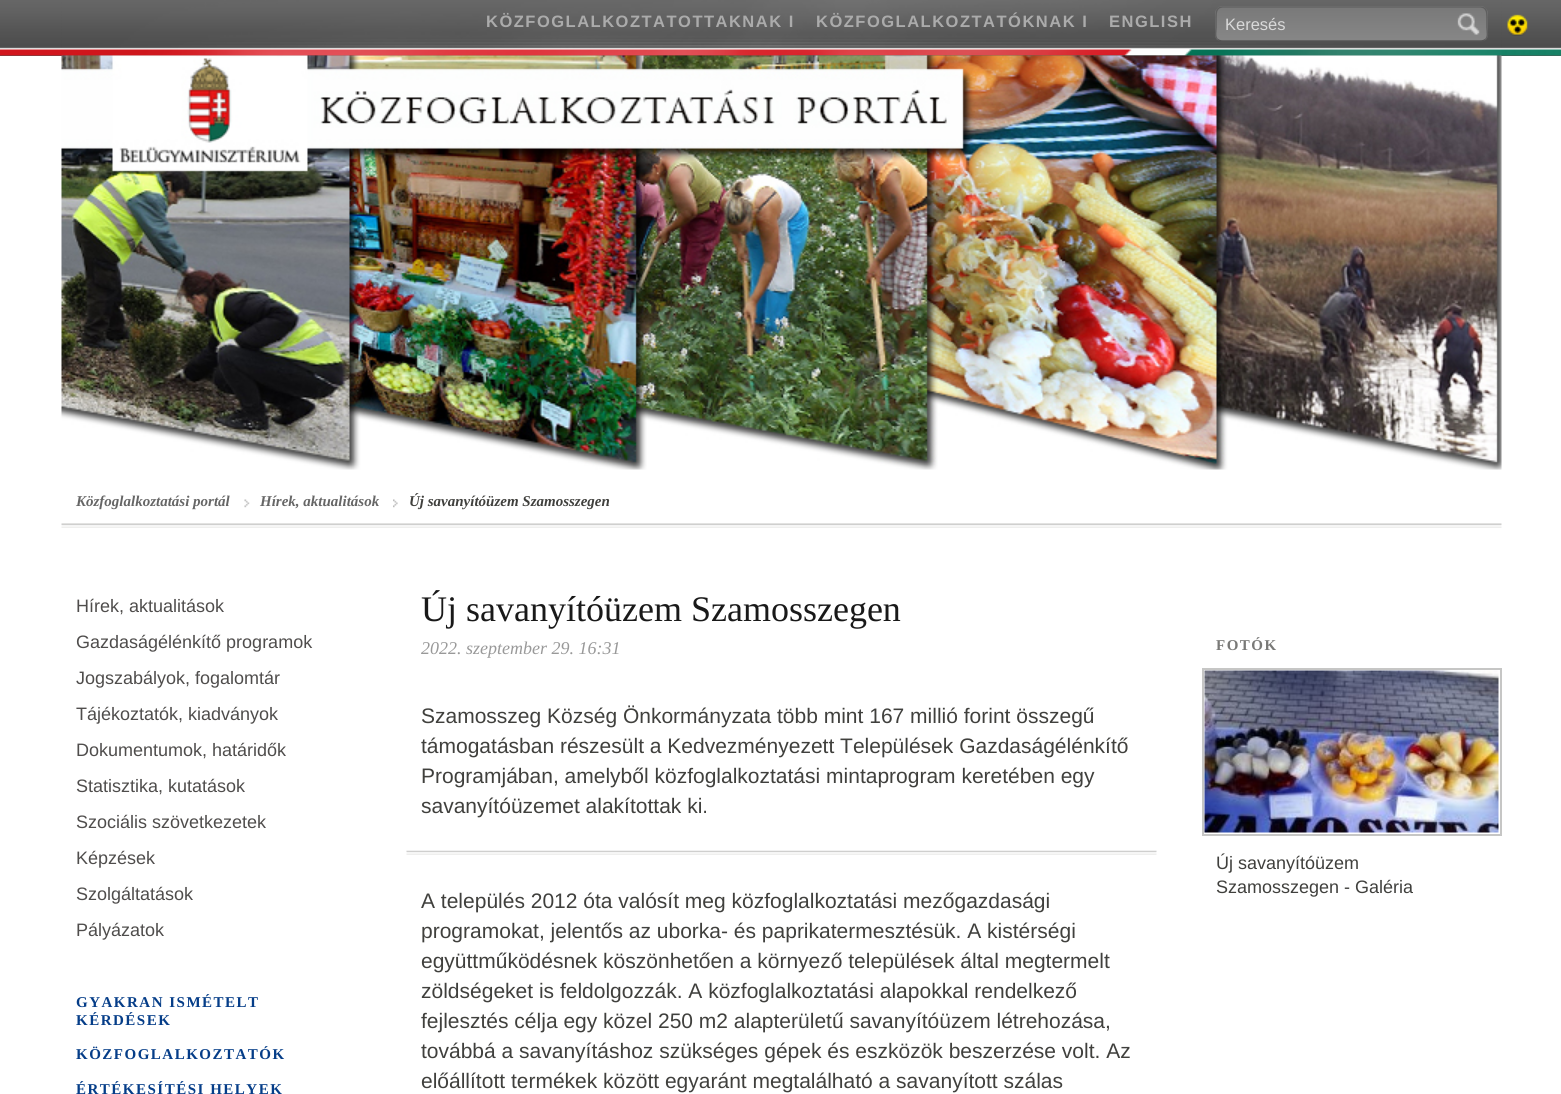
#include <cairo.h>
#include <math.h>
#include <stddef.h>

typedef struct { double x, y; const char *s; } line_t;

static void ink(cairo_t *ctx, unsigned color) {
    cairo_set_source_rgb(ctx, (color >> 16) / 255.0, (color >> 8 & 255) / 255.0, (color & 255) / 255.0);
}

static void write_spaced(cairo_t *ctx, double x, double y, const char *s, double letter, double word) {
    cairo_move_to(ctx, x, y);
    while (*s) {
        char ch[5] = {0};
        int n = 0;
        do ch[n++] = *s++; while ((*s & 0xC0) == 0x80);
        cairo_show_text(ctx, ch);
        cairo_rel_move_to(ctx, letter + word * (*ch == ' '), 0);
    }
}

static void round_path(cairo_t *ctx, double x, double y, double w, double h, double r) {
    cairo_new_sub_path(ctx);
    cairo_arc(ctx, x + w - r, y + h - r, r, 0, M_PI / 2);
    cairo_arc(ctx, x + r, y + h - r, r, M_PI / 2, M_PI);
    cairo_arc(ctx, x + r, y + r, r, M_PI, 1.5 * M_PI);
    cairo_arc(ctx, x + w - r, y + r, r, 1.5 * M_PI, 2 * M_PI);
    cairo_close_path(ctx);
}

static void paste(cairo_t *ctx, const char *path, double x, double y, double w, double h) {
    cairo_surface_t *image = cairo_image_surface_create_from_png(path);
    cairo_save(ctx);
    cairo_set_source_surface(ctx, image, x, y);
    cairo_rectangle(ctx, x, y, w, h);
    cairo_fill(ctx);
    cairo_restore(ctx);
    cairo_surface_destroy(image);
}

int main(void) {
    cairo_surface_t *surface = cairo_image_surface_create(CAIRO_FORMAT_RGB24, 1561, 1094);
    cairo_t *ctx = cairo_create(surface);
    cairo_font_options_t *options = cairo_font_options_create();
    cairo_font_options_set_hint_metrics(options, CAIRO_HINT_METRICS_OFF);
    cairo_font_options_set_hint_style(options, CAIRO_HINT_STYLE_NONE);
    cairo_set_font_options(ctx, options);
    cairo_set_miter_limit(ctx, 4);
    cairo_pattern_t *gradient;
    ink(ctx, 0xFFFFFF);
    cairo_paint(ctx);
    ink(ctx, 0x545454);
    cairo_rectangle(ctx, 0, 55, 1561, 1);
    cairo_fill(ctx);
    paste(ctx, "media/1.png", 0, 0, 782, 56);
    paste(ctx, "media/2.png", 781, 0, 780, 56);
    paste(ctx, "media/3.png", 61, 0, 1441, 56);
    cairo_select_font_face(ctx, "Liberation Sans", CAIRO_FONT_SLANT_NORMAL, CAIRO_FONT_WEIGHT_BOLD);
    cairo_set_font_size(ctx, 16.5);
    ink(ctx, 0xABABAB);
    {
        static const line_t items[] = {
            {486, 27, "KÖZFOGLALKOZTATOTTAKNAK I"},
            {816, 27, "KÖZFOGLALKOZTATÓKNAK I"},
            {1109, 27, "ENGLISH"},
        };
        for (size_t i = 0; i < sizeof items / sizeof *items; i++) {
            write_spaced(ctx, items[i].x, items[i].y, items[i].s, 1.5, 0);
        }
    }
    cairo_save(ctx);
    round_path(ctx, 1215, 6, 273, 36, 8);
    cairo_clip(ctx);
    gradient = cairo_pattern_create_linear(1217, -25, 1217, 7.5);
    cairo_pattern_add_color_stop_rgba(gradient, 0, 0.475, 0.475, 0.475, 1);
    cairo_pattern_add_color_stop_rgba(gradient, 1, 0.529, 0.529, 0.529, 1);
    cairo_set_source(ctx, gradient);
    cairo_pattern_destroy(gradient);
    cairo_rectangle(ctx, 1215, 6, 273, 2);
    cairo_fill(ctx);
    gradient = cairo_pattern_create_linear(1217, 7.5, 1217, 41);
    cairo_pattern_add_color_stop_rgba(gradient, 0, 0.475, 0.475, 0.475, 1);
    cairo_pattern_add_color_stop_rgba(gradient, 1, 0.529, 0.529, 0.529, 1);
    cairo_set_source(ctx, gradient);
    cairo_pattern_destroy(gradient);
    cairo_rectangle(ctx, 1215, 8, 273, 33);
    cairo_fill(ctx);
    cairo_restore(ctx);
    cairo_new_path(ctx);
    cairo_move_to(ctx, 1485.5, 39.5);
    cairo_curve_to(ctx, 1484, 40.5, 1482.5, 41, 1480.5, 41);
    cairo_line_to(ctx, 1222.5, 41);
    cairo_curve_to(ctx, 1220.5, 41, 1219, 40.5, 1217.5, 39.5);
    ink(ctx, 0x535353);
    cairo_set_line_width(ctx, 1.5);
    cairo_stroke(ctx);
    cairo_new_path(ctx);
    cairo_move_to(ctx, 1217.5, 39.5);
    cairo_curve_to(ctx, 1214.5, 36.5, 1216, 31.5, 1216, 27.5);
    cairo_line_to(ctx, 1216, 17);
    cairo_curve_to(ctx, 1216, 12.5, 1216.5, 7, 1222.5, 7);
    cairo_line_to(ctx, 1480.5, 7);
    cairo_curve_to(ctx, 1486.5, 7, 1487, 12.5, 1487, 17);
    cairo_line_to(ctx, 1487, 27.5);
    cairo_curve_to(ctx, 1487, 31.5, 1488.5, 36.5, 1485.5, 39.5);
    ink(ctx, 0x5F5F5F);
    cairo_stroke(ctx);
    cairo_select_font_face(ctx, "Liberation Sans", CAIRO_FONT_SLANT_NORMAL, CAIRO_FONT_WEIGHT_NORMAL);
    ink(ctx, 0xD9D9D9);
    cairo_move_to(ctx, 1225, 30);
    cairo_show_text(ctx, "Keresés");
    paste(ctx, "media/4.png", 1457, 13, 23, 22);
    paste(ctx, "media/5.png", 1507, 14, 21, 22);
    paste(ctx, "media/6.png", 61, 55, 1441, 415);
    paste(ctx, "media/7.png", 61, 523, 1441, 5);
    cairo_select_font_face(ctx, "Liberation Serif", CAIRO_FONT_SLANT_ITALIC, CAIRO_FONT_WEIGHT_BOLD);
    cairo_set_font_size(ctx, 15);
    ink(ctx, 0x666666);
    cairo_move_to(ctx, 76, 506);
    cairo_show_text(ctx, "Közfoglalkoztatási portál");
    paste(ctx, "media/8.png", 244, 499, 6, 9);
    cairo_move_to(ctx, 260, 506);
    cairo_show_text(ctx, "Hírek, aktualitások");
    paste(ctx, "media/9.png", 393, 499, 5, 9);
    ink(ctx, 0x40403D);
    cairo_move_to(ctx, 409, 506);
    cairo_show_text(ctx, "Új savanyítóüzem Szamosszegen");
    cairo_select_font_face(ctx, "Liberation Sans", CAIRO_FONT_SLANT_NORMAL, CAIRO_FONT_WEIGHT_NORMAL);
    cairo_set_font_size(ctx, 18);
    ink(ctx, 0x4F4D4C);
    {
        static const line_t items[] = {
            {76, 612, "Hírek, aktualitások"},
            {76, 648, "Gazdaságélénkítő programok"},
            {76, 684, "Jogszabályok, fogalomtár"},
            {76, 720, "Tájékoztatók, kiadványok"},
            {76, 756, "Dokumentumok, határidők"},
            {76, 792, "Statisztika, kutatások"},
            {76, 828, "Szociális szövetkezetek"},
            {76, 864, "Képzések"},
            {76, 900, "Szolgáltatások"},
            {76, 936, "Pályázatok"},
        };
        for (size_t i = 0; i < sizeof items / sizeof *items; i++) {
            cairo_move_to(ctx, items[i].x, items[i].y);
            cairo_show_text(ctx, items[i].s);
        }
    }
    cairo_select_font_face(ctx, "Liberation Serif", CAIRO_FONT_SLANT_NORMAL, CAIRO_FONT_WEIGHT_BOLD);
    cairo_set_font_size(ctx, 15);
    ink(ctx, 0x053D88);
    {
        static const line_t items[] = {
            {76, 1007, "GYAKRAN ISMÉTELT"},
            {76, 1025, "KÉRDÉSEK"},
            {76, 1059, "KÖZFOGLALKOZTATÓK"},
            {76, 1094, "ÉRTÉKESÍTÉSI HELYEK"},
        };
        for (size_t i = 0; i < sizeof items / sizeof *items; i++) {
            write_spaced(ctx, items[i].x, items[i].y, items[i].s, 1.5, 0);
        }
    }
    cairo_select_font_face(ctx, "Liberation Serif", CAIRO_FONT_SLANT_NORMAL, CAIRO_FONT_WEIGHT_NORMAL);
    cairo_set_font_size(ctx, 36);
    ink(ctx, 0x191919);
    cairo_move_to(ctx, 421, 621);
    cairo_show_text(ctx, "Új savanyítóüzem Szamosszegen");
    cairo_select_font_face(ctx, "Liberation Serif", CAIRO_FONT_SLANT_ITALIC, CAIRO_FONT_WEIGHT_NORMAL);
    cairo_set_font_size(ctx, 18);
    ink(ctx, 0x999999);
    cairo_move_to(ctx, 421, 654);
    cairo_show_text(ctx, "2022. szeptember 29. 16:31");
    cairo_select_font_face(ctx, "Liberation Sans", CAIRO_FONT_SLANT_NORMAL, CAIRO_FONT_WEIGHT_NORMAL);
    cairo_set_font_size(ctx, 21);
    ink(ctx, 0x40403D);
    {
        static const line_t items[] = {
            {421, 723, "Szamosszeg Község Önkormányzata több mint 167 millió forint összegű"},
            {421, 753, "támogatásban részesült a Kedvezményezett Települések Gazdaságélénkítő"},
            {421, 783, "Programjában, amelyből közfoglalkoztatási mintaprogram keretében egy"},
            {421, 813, "savanyítóüzemet alakítottak ki."},
        };
        for (size_t i = 0; i < sizeof items / sizeof *items; i++) {
            cairo_move_to(ctx, items[i].x, items[i].y);
            cairo_show_text(ctx, items[i].s);
        }
    }
    paste(ctx, "media/10.png", 406, 850, 751, 5);
    {
        static const line_t items[] = {
            {421, 908, "A település 2012 óta valósít meg közfoglalkoztatási mezőgazdasági"},
            {421, 938, "programokat, jelentős az uborka- és paprikatermesztésük. A kistérségi"},
            {421, 968, "együttműködésnek köszönhetően a környező települések által megtermelt"},
            {421, 998, "zöldségeket is feldolgozzák. A közfoglalkoztatási alapokkal rendelkező"},
            {421, 1028, "fejlesztés célja egy közel 250 m2 alapterületű savanyítóüzem létrehozása,"},
            {421, 1058, "továbbá a savanyításhoz szükséges gépek és eszközök beszerzése volt. Az"},
            {421, 1088, "előállított termékek között egyaránt megtalálható a savanyított szálas"},
        };
        for (size_t i = 0; i < sizeof items / sizeof *items; i++) {
            cairo_move_to(ctx, items[i].x, items[i].y);
            cairo_show_text(ctx, items[i].s);
        }
    }
    cairo_select_font_face(ctx, "Liberation Serif", CAIRO_FONT_SLANT_NORMAL, CAIRO_FONT_WEIGHT_BOLD);
    cairo_set_font_size(ctx, 15);
    ink(ctx, 0x797977);
    write_spaced(ctx, 1216, 650, "FOTÓK", 1.5, 0);
    cairo_rectangle(ctx, 1203, 669, 298, 166);
    ink(ctx, 0xC6C6C5);
    cairo_set_line_width(ctx, 2);
    cairo_stroke(ctx);
    paste(ctx, "media/11.png", 1204, 670, 295, 163);
    cairo_select_font_face(ctx, "Liberation Sans", CAIRO_FONT_SLANT_NORMAL, CAIRO_FONT_WEIGHT_NORMAL);
    cairo_set_font_size(ctx, 18);
    ink(ctx, 0x40403D);
    cairo_move_to(ctx, 1216, 869);
    cairo_show_text(ctx, "Új savanyítóüzem");
    cairo_move_to(ctx, 1216, 893);
    cairo_show_text(ctx, "Szamosszegen - Galéria");
    cairo_surface_write_to_png(surface, "image.png");
    cairo_font_options_destroy(options);
    cairo_destroy(ctx);
    cairo_surface_destroy(surface);
    return 0;
}
